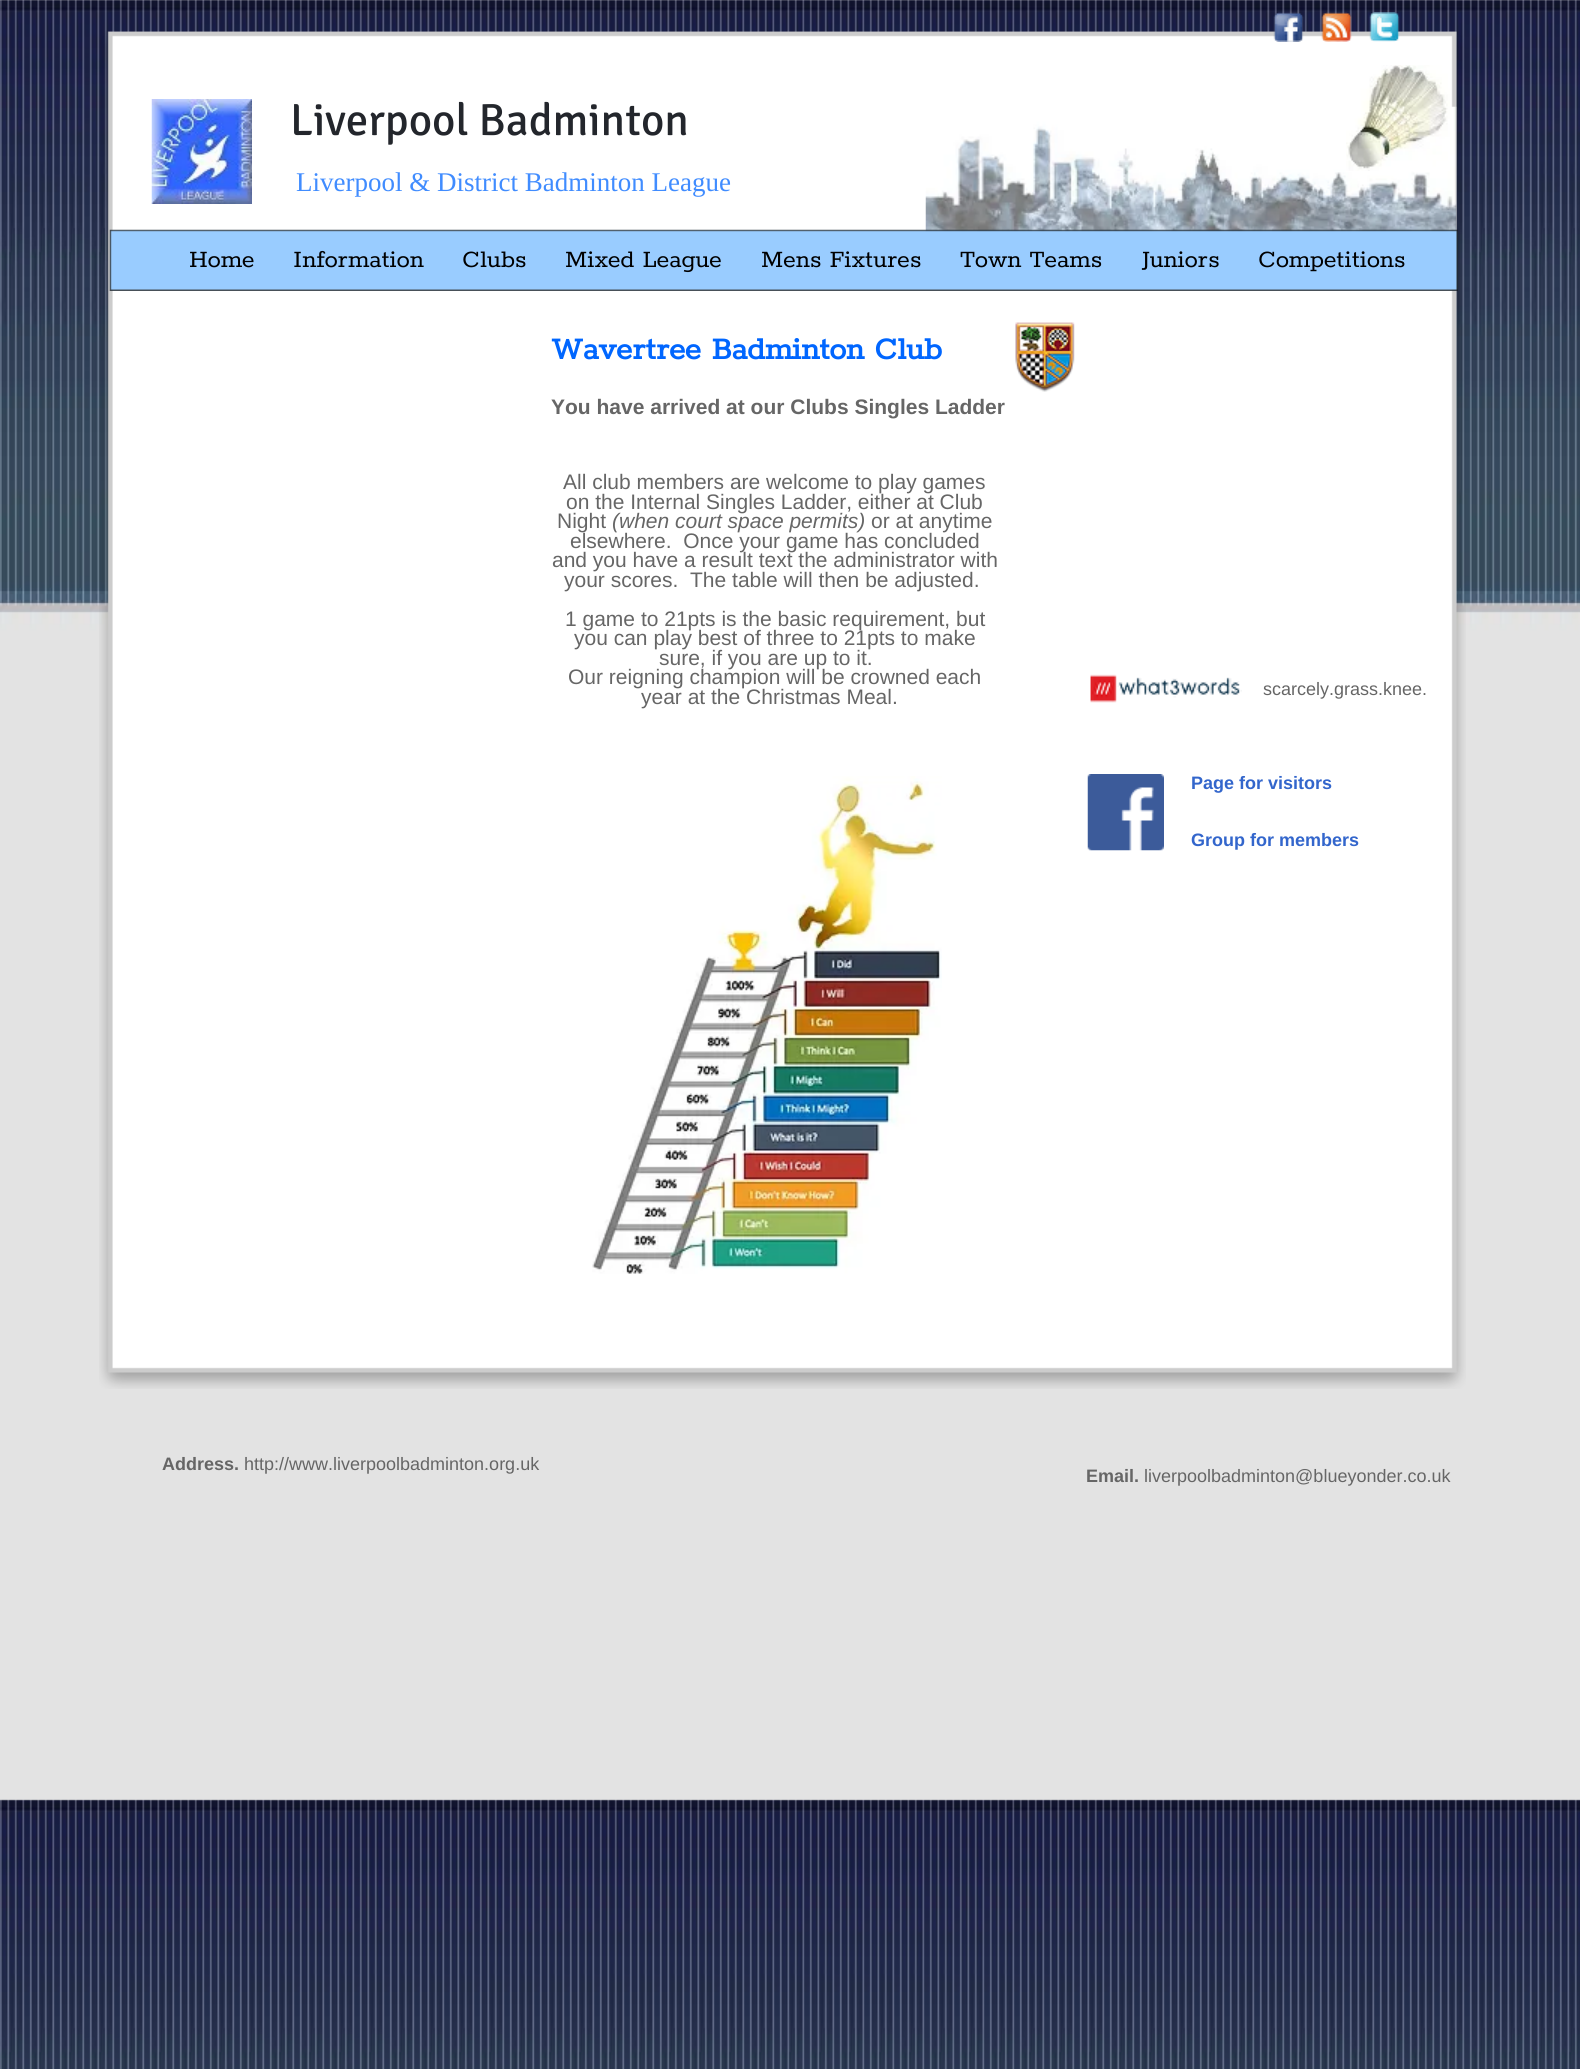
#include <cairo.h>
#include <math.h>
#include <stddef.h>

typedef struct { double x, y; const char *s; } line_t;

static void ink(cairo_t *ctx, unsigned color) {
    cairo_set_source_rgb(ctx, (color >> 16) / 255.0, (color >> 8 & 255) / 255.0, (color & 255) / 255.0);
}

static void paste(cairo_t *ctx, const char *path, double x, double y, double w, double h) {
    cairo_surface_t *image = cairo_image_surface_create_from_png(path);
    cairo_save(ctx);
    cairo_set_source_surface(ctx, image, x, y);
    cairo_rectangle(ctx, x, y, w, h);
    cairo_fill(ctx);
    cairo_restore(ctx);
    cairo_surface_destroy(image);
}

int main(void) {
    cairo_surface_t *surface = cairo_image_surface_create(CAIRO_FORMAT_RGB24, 1580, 2069);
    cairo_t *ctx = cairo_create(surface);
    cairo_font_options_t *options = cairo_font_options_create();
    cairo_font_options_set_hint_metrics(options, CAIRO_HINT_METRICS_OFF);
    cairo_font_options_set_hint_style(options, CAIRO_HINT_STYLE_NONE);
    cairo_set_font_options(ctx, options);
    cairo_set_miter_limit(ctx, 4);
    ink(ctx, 0xFFFFFF);
    cairo_paint(ctx);
    paste(ctx, "media/1.png", 0, 0, 1580, 2069);
    paste(ctx, "media/9.png", 99, 31, 1367, 1358);
    paste(ctx, "media/2.png", 1273, 12, 31, 30);
    paste(ctx, "media/3.png", 1321, 12, 31, 30);
    paste(ctx, "media/4.png", 1369, 12, 31, 30);
    paste(ctx, "media/5.png", 151, 99, 101, 105);
    cairo_select_font_face(ctx, "Signika", CAIRO_FONT_SLANT_NORMAL, CAIRO_FONT_WEIGHT_NORMAL);
    cairo_set_font_size(ctx, 45);
    ink(ctx, 0x23262C);
    cairo_move_to(ctx, 290, 135);
    cairo_show_text(ctx, "Liverpool Badminton");
    paste(ctx, "media/7.png", 925, 106, 532, 127);
    paste(ctx, "media/6.png", 1346, 65, 104, 106);
    cairo_select_font_face(ctx, "Liberation Serif", CAIRO_FONT_SLANT_NORMAL, CAIRO_FONT_WEIGHT_NORMAL);
    cairo_set_font_size(ctx, 27);
    ink(ctx, 0x408CFF);
    cairo_move_to(ctx, 296, 191);
    cairo_show_text(ctx, "Liverpool & District Badminton League");
    paste(ctx, "media/8.png", 109, 229, 1349, 62);
    cairo_select_font_face(ctx, "Rokkitt", CAIRO_FONT_SLANT_NORMAL, CAIRO_FONT_WEIGHT_NORMAL);
    ink(ctx, 0x000000);
    {
        static const line_t items[] = {
            {189, 267, "Home"},
            {293, 267, "Information"},
            {462, 267, "Clubs"},
            {565, 267, "Mixed League"},
            {761, 267, "Mens Fixtures"},
            {960, 267, "Town Teams"},
            {1141, 267, "Juniors"},
            {1258, 267, "Competitions"},
        };
        for (size_t i = 0; i < sizeof items / sizeof *items; i++) {
            cairo_move_to(ctx, items[i].x, items[i].y);
            cairo_show_text(ctx, items[i].s);
        }
    }
    cairo_select_font_face(ctx, "Rokkitt", CAIRO_FONT_SLANT_NORMAL, CAIRO_FONT_WEIGHT_BOLD);
    cairo_set_font_size(ctx, 34.5);
    ink(ctx, 0x0066FF);
    cairo_move_to(ctx, 551, 359);
    cairo_show_text(ctx, "Wavertree Badminton Club");
    paste(ctx, "media/10.png", 1015, 322, 60, 70);
    cairo_select_font_face(ctx, "Liberation Sans", CAIRO_FONT_SLANT_NORMAL, CAIRO_FONT_WEIGHT_BOLD);
    cairo_set_font_size(ctx, 21);
    ink(ctx, 0x666666);
    cairo_move_to(ctx, 551, 414);
    cairo_show_text(ctx, "You have arrived at our Clubs Singles Ladder");
    cairo_select_font_face(ctx, "Liberation Sans", CAIRO_FONT_SLANT_NORMAL, CAIRO_FONT_WEIGHT_NORMAL);
    {
        static const line_t items[] = {
            {563, 489, "All club members are welcome to play games"},
            {566, 509, "on the Internal Singles Ladder, either at Club"},
            {557, 528, "Night"},
        };
        for (size_t i = 0; i < sizeof items / sizeof *items; i++) {
            cairo_move_to(ctx, items[i].x, items[i].y);
            cairo_show_text(ctx, items[i].s);
        }
    }
    cairo_select_font_face(ctx, "Liberation Sans", CAIRO_FONT_SLANT_ITALIC, CAIRO_FONT_WEIGHT_NORMAL);
    cairo_move_to(ctx, 612, 528);
    cairo_show_text(ctx, "(when court space permits)");
    cairo_select_font_face(ctx, "Liberation Sans", CAIRO_FONT_SLANT_NORMAL, CAIRO_FONT_WEIGHT_NORMAL);
    {
        static const line_t items[] = {
            {871, 528, "or at anytime"},
            {570, 548, "elsewhere.  Once your game has concluded"},
            {552, 567, "and you have a result text the administrator with"},
            {564, 587, "your scores.  The table will then be adjusted."},
            {565, 626, "1 game to 21pts is the basic requirement, but"},
            {574, 645, "you can play best of three to 21pts to make"},
            {659, 665, "sure, if you are up to it."},
            {568, 684, "Our reigning champion will be crowned each"},
            {641, 704, "year at the Christmas Meal."},
        };
        for (size_t i = 0; i < sizeof items / sizeof *items; i++) {
            cairo_move_to(ctx, items[i].x, items[i].y);
            cairo_show_text(ctx, items[i].s);
        }
    }
    paste(ctx, "media/11.png", 1090, 674, 152, 29);
    cairo_set_font_size(ctx, 18);
    cairo_move_to(ctx, 1263, 695);
    cairo_show_text(ctx, "scarcely.grass.knee.");
    paste(ctx, "media/12.png", 592, 776, 350, 498);
    paste(ctx, "media/13.png", 1087, 774, 77, 77);
    cairo_select_font_face(ctx, "Liberation Sans", CAIRO_FONT_SLANT_NORMAL, CAIRO_FONT_WEIGHT_BOLD);
    ink(ctx, 0x3366CC);
    cairo_move_to(ctx, 1191, 789);
    cairo_show_text(ctx, "Page for visitors");
    cairo_move_to(ctx, 1191, 846);
    cairo_show_text(ctx, "Group for members");
    ink(ctx, 0x666666);
    cairo_move_to(ctx, 162, 1470);
    cairo_show_text(ctx, "Address.");
    cairo_select_font_face(ctx, "Liberation Sans", CAIRO_FONT_SLANT_NORMAL, CAIRO_FONT_WEIGHT_NORMAL);
    cairo_move_to(ctx, 244, 1470);
    cairo_show_text(ctx, "http://www.liverpoolbadminton.org.uk");
    cairo_select_font_face(ctx, "Liberation Sans", CAIRO_FONT_SLANT_NORMAL, CAIRO_FONT_WEIGHT_BOLD);
    cairo_move_to(ctx, 1086, 1482);
    cairo_show_text(ctx, "Email.");
    cairo_select_font_face(ctx, "Liberation Sans", CAIRO_FONT_SLANT_NORMAL, CAIRO_FONT_WEIGHT_NORMAL);
    cairo_move_to(ctx, 1144, 1482);
    cairo_show_text(ctx, "liverpoolbadminton@blueyonder.co.uk");
    cairo_surface_write_to_png(surface, "image.png");
    cairo_font_options_destroy(options);
    cairo_destroy(ctx);
    cairo_surface_destroy(surface);
    return 0;
}
